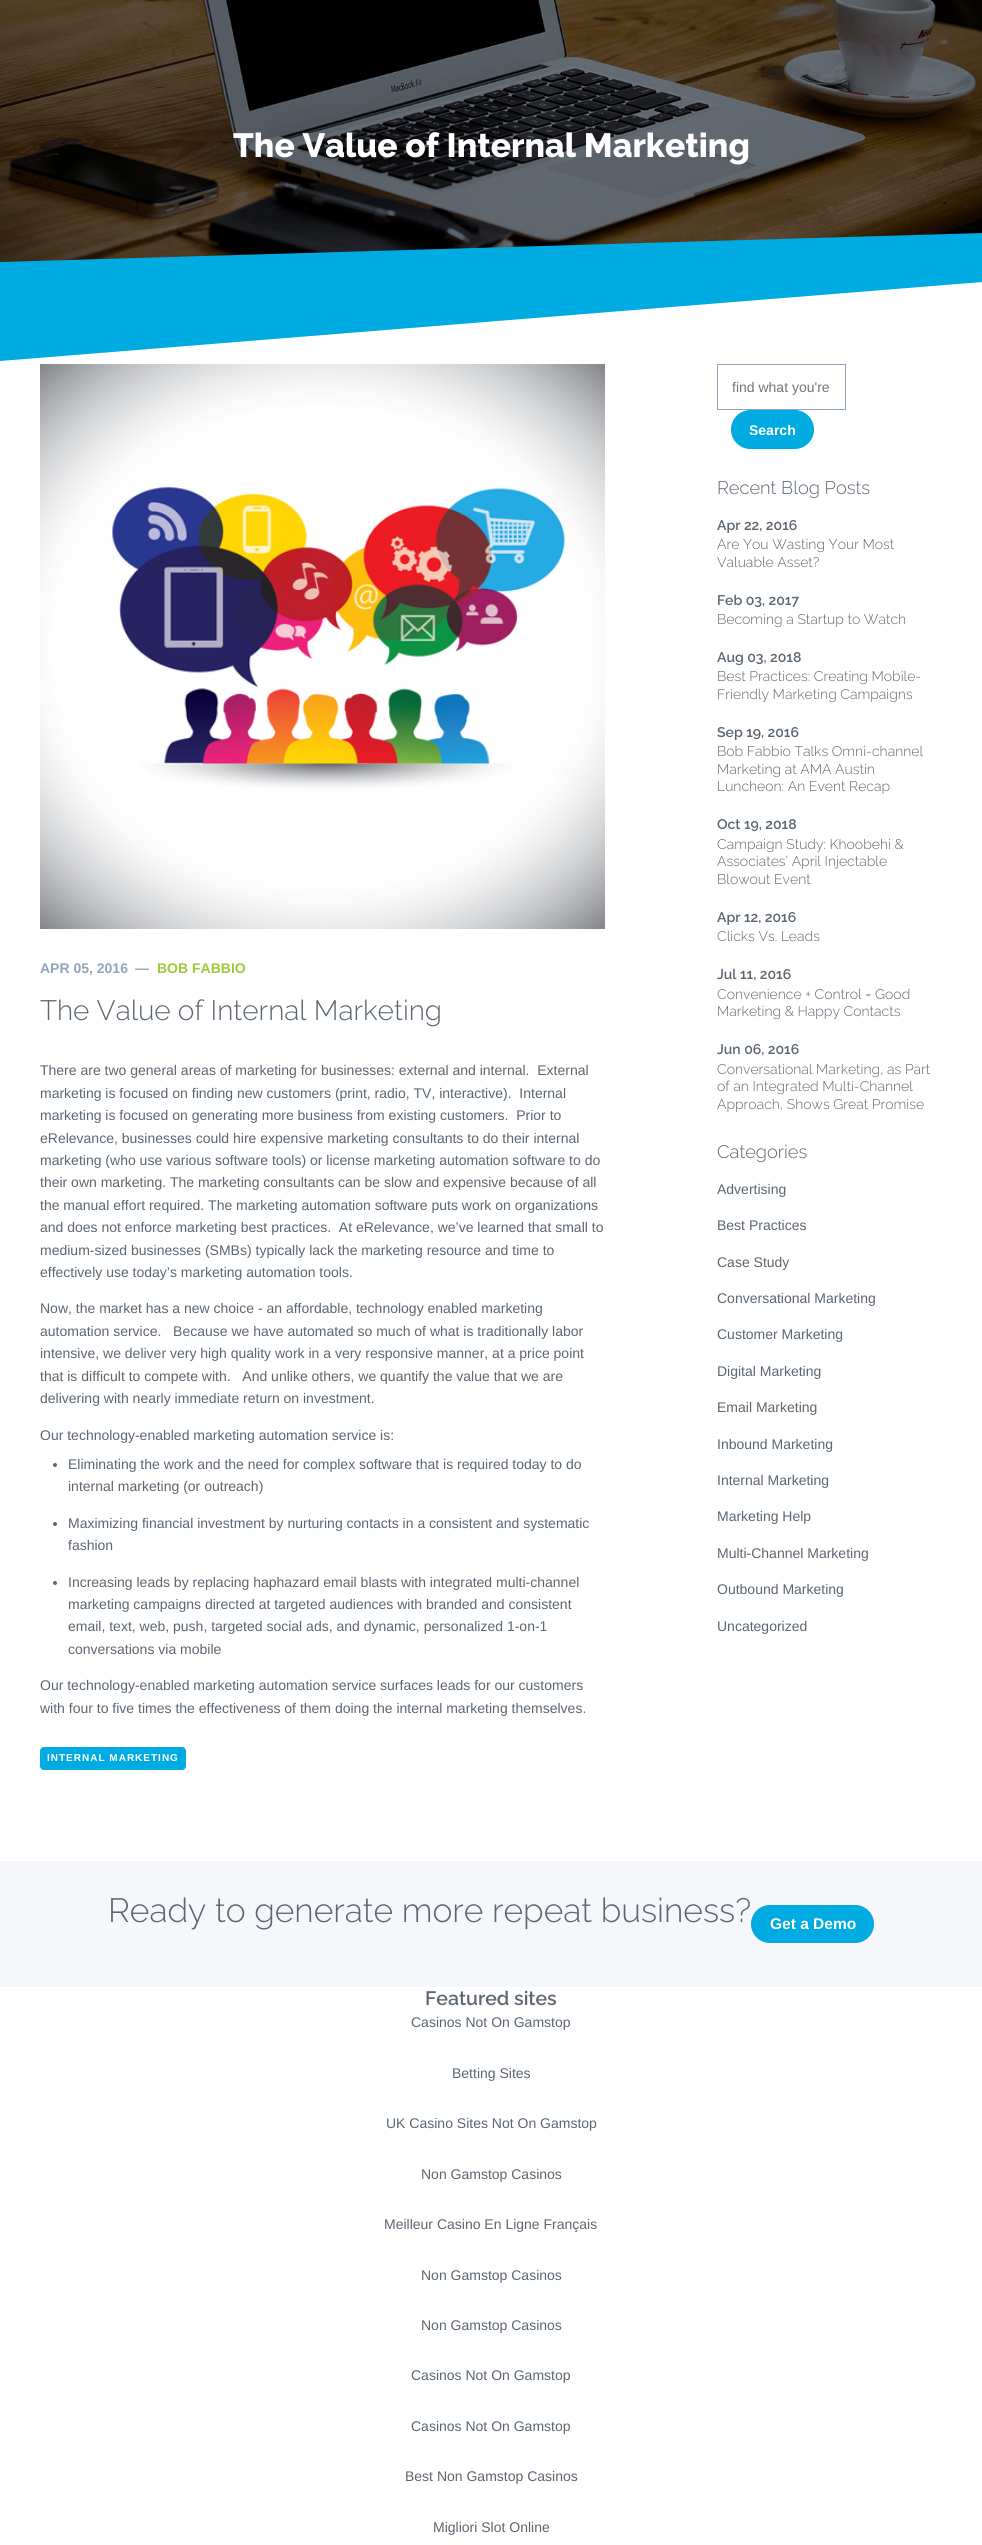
#include <cairo.h>
#include <math.h>
#include <stddef.h>

typedef struct { double x, y; const char *s; } line_t;

static void ink(cairo_t *ctx, unsigned color) {
    cairo_set_source_rgb(ctx, (color >> 16) / 255.0, (color >> 8 & 255) / 255.0, (color & 255) / 255.0);
}

static void write_spaced(cairo_t *ctx, double x, double y, const char *s, double letter, double word) {
    cairo_move_to(ctx, x, y);
    while (*s) {
        char ch[5] = {0};
        int n = 0;
        do ch[n++] = *s++; while ((*s & 0xC0) == 0x80);
        cairo_show_text(ctx, ch);
        cairo_rel_move_to(ctx, letter + word * (*ch == ' '), 0);
    }
}

static void round_path(cairo_t *ctx, double x, double y, double w, double h, double r) {
    cairo_new_sub_path(ctx);
    cairo_arc(ctx, x + w - r, y + h - r, r, 0, M_PI / 2);
    cairo_arc(ctx, x + r, y + h - r, r, M_PI / 2, M_PI);
    cairo_arc(ctx, x + r, y + r, r, M_PI, 1.5 * M_PI);
    cairo_arc(ctx, x + w - r, y + r, r, 1.5 * M_PI, 2 * M_PI);
    cairo_close_path(ctx);
}

static void paste(cairo_t *ctx, const char *path, double x, double y, double w, double h) {
    cairo_surface_t *image = cairo_image_surface_create_from_png(path);
    cairo_save(ctx);
    cairo_set_source_surface(ctx, image, x, y);
    cairo_rectangle(ctx, x, y, w, h);
    cairo_fill(ctx);
    cairo_restore(ctx);
    cairo_surface_destroy(image);
}

int main(void) {
    cairo_surface_t *surface = cairo_image_surface_create(CAIRO_FORMAT_RGB24, 982, 2545);
    cairo_t *ctx = cairo_create(surface);
    cairo_font_options_t *options = cairo_font_options_create();
    cairo_font_options_set_hint_metrics(options, CAIRO_HINT_METRICS_OFF);
    cairo_font_options_set_hint_style(options, CAIRO_HINT_STYLE_NONE);
    cairo_set_font_options(ctx, options);
    cairo_set_miter_limit(ctx, 4);
    ink(ctx, 0xFFFFFF);
    cairo_paint(ctx);
    paste(ctx, "media/1.png", 0, 0, 982, 262);
    cairo_select_font_face(ctx, "Raleway ExtraBold", CAIRO_FONT_SLANT_NORMAL, CAIRO_FONT_WEIGHT_NORMAL);
    cairo_set_font_size(ctx, 33.6);
    ink(ctx, 0xFFFFFF);
    cairo_move_to(ctx, 233, 157);
    cairo_show_text(ctx, "The Value of Internal Marketing");
    ink(ctx, 0x00ABE1);
    cairo_new_path(ctx);
    cairo_move_to(ctx, 0, 262);
    cairo_line_to(ctx, 0, 361);
    cairo_line_to(ctx, 982, 282);
    cairo_line_to(ctx, 982, 233);
    cairo_close_path(ctx);
    cairo_fill(ctx);
    paste(ctx, "media/2.png", 40, 364, 565, 565);
    cairo_select_font_face(ctx, "Liberation Sans", CAIRO_FONT_SLANT_NORMAL, CAIRO_FONT_WEIGHT_BOLD);
    cairo_set_font_size(ctx, 14);
    ink(ctx, 0x93A5BB);
    cairo_move_to(ctx, 40, 973);
    cairo_show_text(ctx, "APR 05, 2016");
    cairo_move_to(ctx, 135, 973);
    cairo_show_text(ctx, "—");
    ink(ctx, 0x9BCA3B);
    cairo_move_to(ctx, 157, 973);
    cairo_show_text(ctx, "BOB FABBIO");
    cairo_select_font_face(ctx, "Raleway Light", CAIRO_FONT_SLANT_NORMAL, CAIRO_FONT_WEIGHT_NORMAL);
    cairo_set_font_size(ctx, 28);
    ink(ctx, 0x5C6670);
    cairo_move_to(ctx, 40, 1020);
    cairo_show_text(ctx, "The Value of Internal Marketing");
    cairo_select_font_face(ctx, "Liberation Sans", CAIRO_FONT_SLANT_NORMAL, CAIRO_FONT_WEIGHT_NORMAL);
    cairo_set_font_size(ctx, 14);
    {
        static const line_t items[] = {
            {40, 1075, "There are two general areas of marketing for businesses: external and internal.  External"},
            {40, 1098, "marketing is focused on finding new customers (print, radio, TV, interactive).  Internal"},
            {40, 1120, "marketing is focused on generating more business from existing customers.  Prior to"},
            {40, 1143, "eRelevance, businesses could hire expensive marketing consultants to do their internal"},
            {40, 1165, "marketing (who use various software tools) or license marketing automation software to do"},
            {40, 1187, "their own marketing. The marketing consultants can be slow and expensive because of all"},
            {40, 1210, "the manual effort required. The marketing automation software puts work on organizations"},
            {40, 1232, "and does not enforce marketing best practices.  At eRelevance, we’ve learned that small to"},
            {40, 1255, "medium-sized businesses (SMBs) typically lack the marketing resource and time to"},
            {40, 1277, "effectively use today’s marketing automation tools."},
            {40, 1313, "Now, the market has a new choice - an affordable, technology enabled marketing"},
            {40, 1336, "automation service.   Because we have automated so much of what is traditionally labor"},
            {40, 1358, "intensive, we deliver very high quality work in a very responsive manner, at a price point"},
            {40, 1381, "that is difficult to compete with.   And unlike others, we quantify the value that we are"},
            {40, 1403, "delivering with nearly immediate return on investment."},
            {40, 1440, "Our technology-enabled marketing automation service is:"},
        };
        for (size_t i = 0; i < sizeof items / sizeof *items; i++) {
            cairo_move_to(ctx, items[i].x, items[i].y);
            cairo_show_text(ctx, items[i].s);
        }
    }
    cairo_new_path(ctx);
    cairo_arc(ctx, 55, 1465, 2, 0, 2 * M_PI);
    cairo_fill(ctx);
    cairo_move_to(ctx, 68, 1469);
    cairo_show_text(ctx, "Eliminating the work and the need for complex software that is required today to do");
    cairo_move_to(ctx, 68, 1491);
    cairo_show_text(ctx, "internal marketing (or outreach)");
    cairo_new_path(ctx);
    cairo_arc(ctx, 55, 1524, 2, 0, 2 * M_PI);
    cairo_fill(ctx);
    cairo_move_to(ctx, 68, 1528);
    cairo_show_text(ctx, "Maximizing financial investment by nurturing contacts in a consistent and systematic");
    cairo_move_to(ctx, 68, 1550);
    cairo_show_text(ctx, "fashion");
    cairo_new_path(ctx);
    cairo_arc(ctx, 55, 1583, 2, 0, 2 * M_PI);
    cairo_fill(ctx);
    {
        static const line_t items[] = {
            {68, 1587, "Increasing leads by replacing haphazard email blasts with integrated multi-channel"},
            {68, 1609, "marketing campaigns directed at targeted audiences with branded and consistent"},
            {68, 1631, "email, text, web, push, targeted social ads, and dynamic, personalized 1-on-1"},
            {68, 1654, "conversations via mobile"},
            {40, 1690, "Our technology-enabled marketing automation service surfaces leads for our customers"},
            {40, 1713, "with four to five times the effectiveness of them doing the internal marketing themselves."},
        };
        for (size_t i = 0; i < sizeof items / sizeof *items; i++) {
            cairo_move_to(ctx, items[i].x, items[i].y);
            cairo_show_text(ctx, items[i].s);
        }
    }
    ink(ctx, 0x00ABE1);
    round_path(ctx, 40, 1747, 146, 23, 4);
    cairo_fill(ctx);
    cairo_select_font_face(ctx, "Liberation Sans", CAIRO_FONT_SLANT_NORMAL, CAIRO_FONT_WEIGHT_BOLD);
    cairo_set_font_size(ctx, 10);
    ink(ctx, 0xFFFFFF);
    write_spaced(ctx, 47, 1761, "INTERNAL MARKETING", 1, 0);
    cairo_rectangle(ctx, 717.5, 364.5, 128, 45);
    ink(ctx, 0x93A5BB);
    cairo_set_line_width(ctx, 1);
    cairo_stroke(ctx);
    cairo_select_font_face(ctx, "Liberation Sans", CAIRO_FONT_SLANT_NORMAL, CAIRO_FONT_WEIGHT_NORMAL);
    cairo_set_font_size(ctx, 14);
    ink(ctx, 0x757575);
    cairo_move_to(ctx, 732, 392);
    cairo_show_text(ctx, "find what you're");
    ink(ctx, 0x00ABE1);
    round_path(ctx, 731.5, 410.5, 82, 38, 19);
    cairo_fill_preserve(ctx);
    cairo_stroke(ctx);
    cairo_select_font_face(ctx, "Liberation Sans", CAIRO_FONT_SLANT_NORMAL, CAIRO_FONT_WEIGHT_BOLD);
    ink(ctx, 0xFFFFFF);
    cairo_move_to(ctx, 749, 435);
    cairo_show_text(ctx, "Search");
    cairo_select_font_face(ctx, "Raleway Light", CAIRO_FONT_SLANT_NORMAL, CAIRO_FONT_WEIGHT_NORMAL);
    cairo_set_font_size(ctx, 18.25);
    ink(ctx, 0x5C6670);
    cairo_move_to(ctx, 717, 494);
    cairo_show_text(ctx, "Recent Blog Posts");
    cairo_select_font_face(ctx, "Raleway SemiBold", CAIRO_FONT_SLANT_NORMAL, CAIRO_FONT_WEIGHT_NORMAL);
    cairo_set_font_size(ctx, 14);
    cairo_move_to(ctx, 717, 530);
    cairo_show_text(ctx, "Apr 22, 2016");
    cairo_select_font_face(ctx, "Raleway Light", CAIRO_FONT_SLANT_NORMAL, CAIRO_FONT_WEIGHT_NORMAL);
    cairo_move_to(ctx, 717, 549);
    cairo_show_text(ctx, "Are You Wasting Your Most");
    cairo_move_to(ctx, 717, 567);
    cairo_show_text(ctx, "Valuable Asset?");
    cairo_select_font_face(ctx, "Raleway SemiBold", CAIRO_FONT_SLANT_NORMAL, CAIRO_FONT_WEIGHT_NORMAL);
    cairo_move_to(ctx, 717, 605);
    cairo_show_text(ctx, "Feb 03, 2017");
    cairo_select_font_face(ctx, "Raleway Light", CAIRO_FONT_SLANT_NORMAL, CAIRO_FONT_WEIGHT_NORMAL);
    cairo_move_to(ctx, 717, 624);
    cairo_show_text(ctx, "Becoming a Startup to Watch");
    cairo_select_font_face(ctx, "Raleway SemiBold", CAIRO_FONT_SLANT_NORMAL, CAIRO_FONT_WEIGHT_NORMAL);
    cairo_move_to(ctx, 717, 662);
    cairo_show_text(ctx, "Aug 03, 2018");
    cairo_select_font_face(ctx, "Raleway Light", CAIRO_FONT_SLANT_NORMAL, CAIRO_FONT_WEIGHT_NORMAL);
    cairo_move_to(ctx, 717, 681);
    cairo_show_text(ctx, "Best Practices: Creating Mobile-");
    cairo_move_to(ctx, 717, 699);
    cairo_show_text(ctx, "Friendly Marketing Campaigns");
    cairo_select_font_face(ctx, "Raleway SemiBold", CAIRO_FONT_SLANT_NORMAL, CAIRO_FONT_WEIGHT_NORMAL);
    cairo_move_to(ctx, 717, 737);
    cairo_show_text(ctx, "Sep 19, 2016");
    cairo_select_font_face(ctx, "Raleway Light", CAIRO_FONT_SLANT_NORMAL, CAIRO_FONT_WEIGHT_NORMAL);
    {
        static const line_t items[] = {
            {717, 756, "Bob Fabbio Talks Omni-channel"},
            {717, 774, "Marketing at AMA Austin"},
            {717, 791, "Luncheon: An Event Recap"},
        };
        for (size_t i = 0; i < sizeof items / sizeof *items; i++) {
            cairo_move_to(ctx, items[i].x, items[i].y);
            cairo_show_text(ctx, items[i].s);
        }
    }
    cairo_select_font_face(ctx, "Raleway SemiBold", CAIRO_FONT_SLANT_NORMAL, CAIRO_FONT_WEIGHT_NORMAL);
    cairo_move_to(ctx, 717, 829);
    cairo_show_text(ctx, "Oct 19, 2018");
    cairo_select_font_face(ctx, "Raleway Light", CAIRO_FONT_SLANT_NORMAL, CAIRO_FONT_WEIGHT_NORMAL);
    {
        static const line_t items[] = {
            {717, 849, "Campaign Study: Khoobehi &"},
            {717, 866, "Associates’ April Injectable"},
            {717, 884, "Blowout Event"},
        };
        for (size_t i = 0; i < sizeof items / sizeof *items; i++) {
            cairo_move_to(ctx, items[i].x, items[i].y);
            cairo_show_text(ctx, items[i].s);
        }
    }
    cairo_select_font_face(ctx, "Raleway SemiBold", CAIRO_FONT_SLANT_NORMAL, CAIRO_FONT_WEIGHT_NORMAL);
    cairo_move_to(ctx, 717, 922);
    cairo_show_text(ctx, "Apr 12, 2016");
    cairo_select_font_face(ctx, "Raleway Light", CAIRO_FONT_SLANT_NORMAL, CAIRO_FONT_WEIGHT_NORMAL);
    cairo_move_to(ctx, 717, 941);
    cairo_show_text(ctx, "Clicks Vs. Leads");
    cairo_select_font_face(ctx, "Raleway SemiBold", CAIRO_FONT_SLANT_NORMAL, CAIRO_FONT_WEIGHT_NORMAL);
    cairo_move_to(ctx, 717, 979);
    cairo_show_text(ctx, "Jul 11, 2016");
    cairo_select_font_face(ctx, "Raleway Light", CAIRO_FONT_SLANT_NORMAL, CAIRO_FONT_WEIGHT_NORMAL);
    cairo_move_to(ctx, 717, 999);
    cairo_show_text(ctx, "Convenience + Control = Good");
    cairo_move_to(ctx, 717, 1016);
    cairo_show_text(ctx, "Marketing & Happy Contacts");
    cairo_select_font_face(ctx, "Raleway SemiBold", CAIRO_FONT_SLANT_NORMAL, CAIRO_FONT_WEIGHT_NORMAL);
    cairo_move_to(ctx, 717, 1054);
    cairo_show_text(ctx, "Jun 06, 2016");
    cairo_select_font_face(ctx, "Raleway Light", CAIRO_FONT_SLANT_NORMAL, CAIRO_FONT_WEIGHT_NORMAL);
    {
        static const line_t items[] = {
            {717, 1074, "Conversational Marketing, as Part"},
            {717, 1091, "of an Integrated Multi-Channel"},
            {717, 1109, "Approach, Shows Great Promise"},
        };
        for (size_t i = 0; i < sizeof items / sizeof *items; i++) {
            cairo_move_to(ctx, items[i].x, items[i].y);
            cairo_show_text(ctx, items[i].s);
        }
    }
    cairo_set_font_size(ctx, 18.25);
    cairo_move_to(ctx, 717, 1158);
    cairo_show_text(ctx, "Categories");
    cairo_select_font_face(ctx, "Liberation Sans", CAIRO_FONT_SLANT_NORMAL, CAIRO_FONT_WEIGHT_NORMAL);
    cairo_set_font_size(ctx, 14);
    {
        static const line_t items[] = {
            {717, 1194, "Advertising"},
            {717, 1230, "Best Practices"},
            {717, 1267, "Case Study"},
            {717, 1303, "Conversational Marketing"},
            {717, 1339, "Customer Marketing"},
            {717, 1376, "Digital Marketing"},
            {717, 1412, "Email Marketing"},
            {717, 1449, "Inbound Marketing"},
            {717, 1485, "Internal Marketing"},
            {717, 1521, "Marketing Help"},
            {717, 1558, "Multi-Channel Marketing"},
            {717, 1594, "Outbound Marketing"},
            {717, 1631, "Uncategorized"},
        };
        for (size_t i = 0; i < sizeof items / sizeof *items; i++) {
            cairo_move_to(ctx, items[i].x, items[i].y);
            cairo_show_text(ctx, items[i].s);
        }
    }
    ink(ctx, 0xF5F7FA);
    cairo_rectangle(ctx, 0, 1861, 982, 126);
    cairo_fill(ctx);
    cairo_select_font_face(ctx, "Raleway Light", CAIRO_FONT_SLANT_NORMAL, CAIRO_FONT_WEIGHT_NORMAL);
    cairo_set_font_size(ctx, 33.6);
    ink(ctx, 0x5C6670);
    cairo_move_to(ctx, 108, 1922);
    cairo_show_text(ctx, "Ready to generate more repeat business?");
    ink(ctx, 0x00ABE1);
    round_path(ctx, 751.5, 1905.5, 122, 37, 18.5);
    cairo_fill_preserve(ctx);
    cairo_stroke(ctx);
    cairo_select_font_face(ctx, "Liberation Sans", CAIRO_FONT_SLANT_NORMAL, CAIRO_FONT_WEIGHT_BOLD);
    cairo_set_font_size(ctx, 15.5);
    ink(ctx, 0xFFFFFF);
    cairo_move_to(ctx, 770, 1929);
    cairo_show_text(ctx, "Get a Demo");
    cairo_select_font_face(ctx, "Raleway SemiBold", CAIRO_FONT_SLANT_NORMAL, CAIRO_FONT_WEIGHT_NORMAL);
    cairo_set_font_size(ctx, 19.5);
    ink(ctx, 0x5C6670);
    cairo_move_to(ctx, 425, 2005);
    cairo_show_text(ctx, "Featured sites");
    cairo_select_font_face(ctx, "Liberation Sans", CAIRO_FONT_SLANT_NORMAL, CAIRO_FONT_WEIGHT_NORMAL);
    cairo_set_font_size(ctx, 14);
    {
        static const line_t items[] = {
            {411, 2027, "Casinos Not On Gamstop"},
            {452, 2078, "Betting Sites"},
            {386, 2128, "UK Casino Sites Not On Gamstop"},
            {421, 2179, "Non Gamstop Casinos"},
            {384, 2229, "Meilleur Casino En Ligne Français"},
            {421, 2280, "Non Gamstop Casinos"},
            {421, 2330, "Non Gamstop Casinos"},
            {411, 2380, "Casinos Not On Gamstop"},
            {411, 2431, "Casinos Not On Gamstop"},
            {405, 2481, "Best Non Gamstop Casinos"},
            {433, 2532, "Migliori Slot Online"},
        };
        for (size_t i = 0; i < sizeof items / sizeof *items; i++) {
            cairo_move_to(ctx, items[i].x, items[i].y);
            cairo_show_text(ctx, items[i].s);
        }
    }
    cairo_surface_write_to_png(surface, "image.png");
    cairo_font_options_destroy(options);
    cairo_destroy(ctx);
    cairo_surface_destroy(surface);
    return 0;
}
